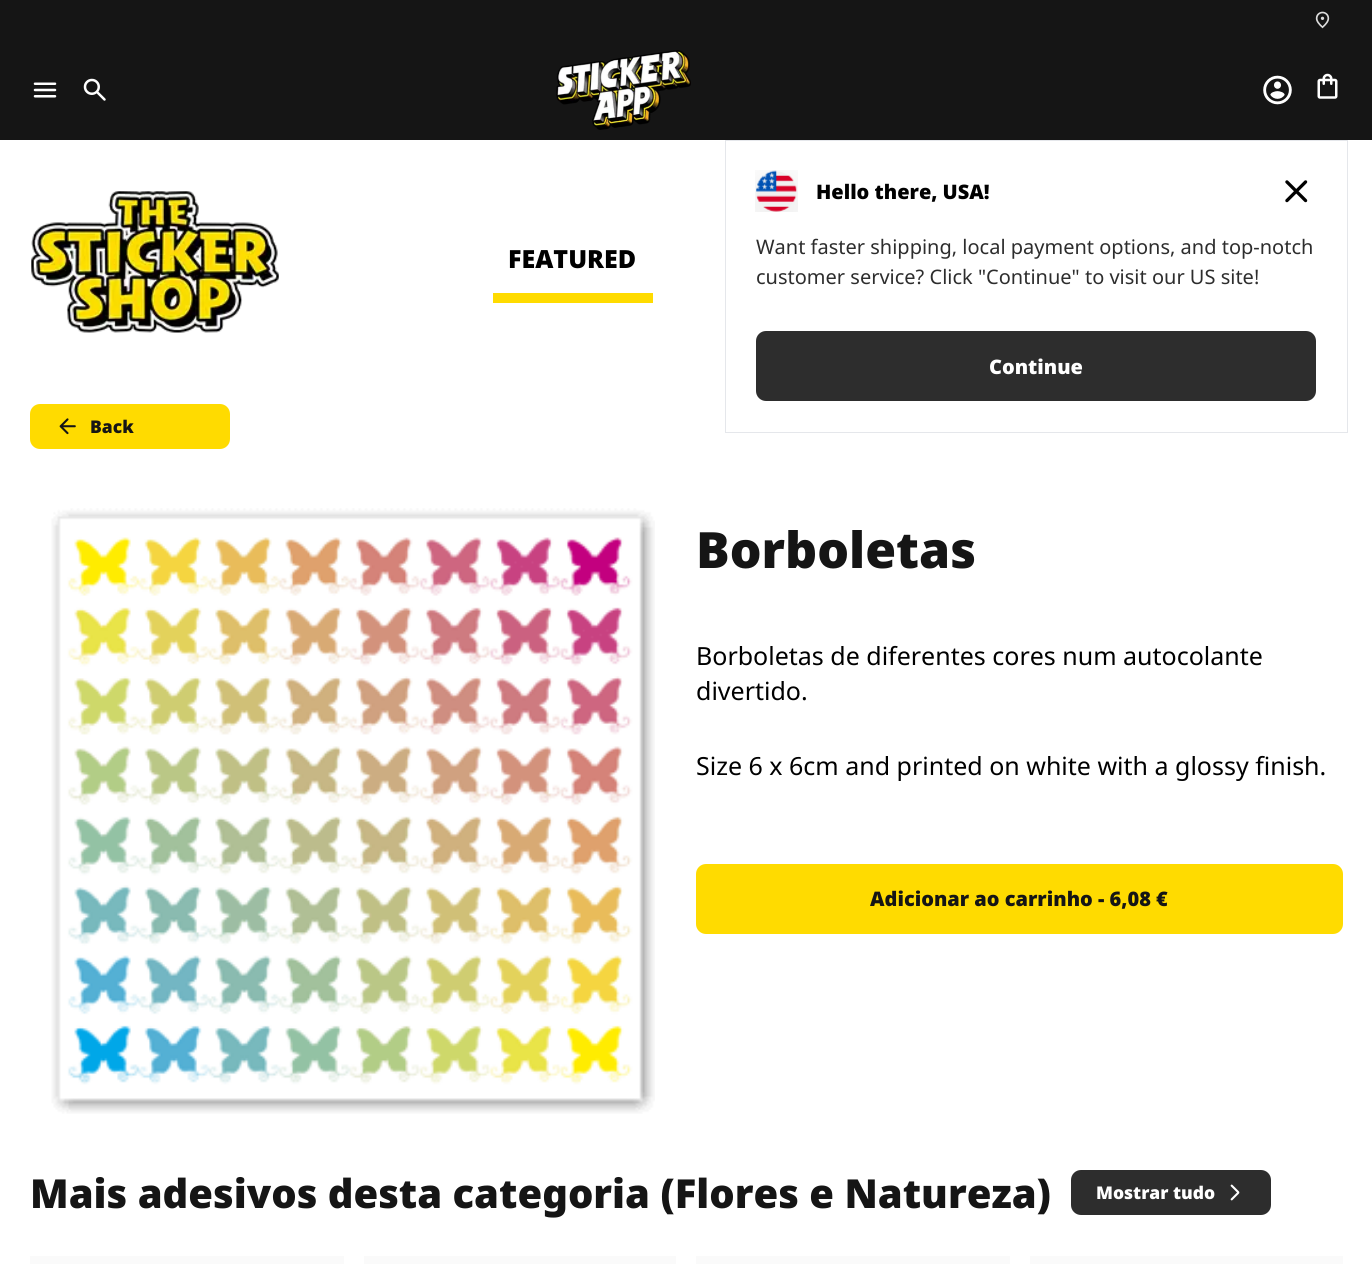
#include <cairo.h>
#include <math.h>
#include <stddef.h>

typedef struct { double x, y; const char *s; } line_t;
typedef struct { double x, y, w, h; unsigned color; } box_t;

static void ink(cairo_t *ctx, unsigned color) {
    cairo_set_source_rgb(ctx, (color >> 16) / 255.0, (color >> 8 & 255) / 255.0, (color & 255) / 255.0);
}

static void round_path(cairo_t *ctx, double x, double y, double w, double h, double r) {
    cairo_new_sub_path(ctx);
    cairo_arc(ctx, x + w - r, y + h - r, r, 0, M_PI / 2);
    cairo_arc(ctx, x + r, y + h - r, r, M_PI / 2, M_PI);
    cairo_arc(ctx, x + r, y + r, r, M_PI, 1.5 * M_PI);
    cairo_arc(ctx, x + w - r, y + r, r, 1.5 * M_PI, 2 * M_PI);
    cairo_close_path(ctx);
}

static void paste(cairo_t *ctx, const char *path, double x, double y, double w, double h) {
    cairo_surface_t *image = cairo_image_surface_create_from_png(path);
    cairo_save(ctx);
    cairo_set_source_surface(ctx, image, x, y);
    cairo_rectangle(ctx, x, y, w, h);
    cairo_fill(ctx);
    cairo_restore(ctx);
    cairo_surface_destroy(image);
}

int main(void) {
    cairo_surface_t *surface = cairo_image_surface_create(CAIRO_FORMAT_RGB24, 1372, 1264);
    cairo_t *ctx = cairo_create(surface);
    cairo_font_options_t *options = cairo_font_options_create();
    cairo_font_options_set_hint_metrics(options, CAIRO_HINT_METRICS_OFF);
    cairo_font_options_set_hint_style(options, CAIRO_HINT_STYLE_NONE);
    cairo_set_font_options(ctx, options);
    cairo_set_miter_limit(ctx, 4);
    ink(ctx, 0xFFFFFF);
    cairo_paint(ctx);
    ink(ctx, 0x151515);
    cairo_rectangle(ctx, 0, 0, 1372, 140);
    cairo_fill(ctx);
    paste(ctx, "media/1.png", 1315, 11, 15, 18);
    paste(ctx, "media/2.png", 33, 82, 24, 16);
    paste(ctx, "media/3.png", 83, 78, 23, 23);
    paste(ctx, "media/4.png", 556, 50, 135, 80);
    paste(ctx, "media/5.png", 1263, 75, 29, 30);
    paste(ctx, "media/6.png", 1317, 73, 21, 26);
    paste(ctx, "media/7.png", 31, 191, 248, 142);
    cairo_select_font_face(ctx, "Noto Sans Black", CAIRO_FONT_SLANT_NORMAL, CAIRO_FONT_WEIGHT_NORMAL);
    cairo_set_font_size(ctx, 25);
    ink(ctx, 0x000000);
    cairo_move_to(ctx, 508, 268);
    cairo_show_text(ctx, "FEATURED");
    ink(ctx, 0xFFDB00);
    cairo_rectangle(ctx, 493, 293, 160, 10);
    cairo_fill(ctx);
    cairo_rectangle(ctx, 725.5, 140.5, 622, 292);
    ink(ctx, 0xE5E7EB);
    cairo_set_line_width(ctx, 1);
    cairo_stroke(ctx);
    paste(ctx, "media/8.png", 755, 170, 43, 42);
    cairo_set_font_size(ctx, 20);
    ink(ctx, 0x000000);
    cairo_move_to(ctx, 816, 199);
    cairo_show_text(ctx, "Hello there, USA!");
    paste(ctx, "media/9.png", 1285, 180, 23, 23);
    cairo_select_font_face(ctx, "Noto Sans", CAIRO_FONT_SLANT_NORMAL, CAIRO_FONT_WEIGHT_NORMAL);
    ink(ctx, 0x2D2D2D);
    cairo_move_to(ctx, 756, 254);
    cairo_show_text(ctx, "Want faster shipping, local payment options, and top-notch");
    cairo_move_to(ctx, 756, 284);
    cairo_show_text(ctx, "customer service? Click \"Continue\" to visit our US site!");
    round_path(ctx, 756, 331, 560, 70, 10);
    cairo_fill(ctx);
    cairo_select_font_face(ctx, "Noto Sans Black", CAIRO_FONT_SLANT_NORMAL, CAIRO_FONT_WEIGHT_NORMAL);
    ink(ctx, 0xFFFFFF);
    cairo_move_to(ctx, 989, 374);
    cairo_show_text(ctx, "Continue");
    ink(ctx, 0xFFDB00);
    round_path(ctx, 30, 404, 200, 45, 10);
    cairo_fill(ctx);
    paste(ctx, "media/10.png", 59, 418, 17, 17);
    cairo_set_font_size(ctx, 17.5);
    ink(ctx, 0x151515);
    cairo_move_to(ctx, 90, 433);
    cairo_show_text(ctx, "Back");
    paste(ctx, "media/11.png", 51, 508, 604, 606);
    cairo_set_font_size(ctx, 50);
    cairo_move_to(ctx, 696, 568);
    cairo_show_text(ctx, "Borboletas");
    cairo_select_font_face(ctx, "Noto Sans", CAIRO_FONT_SLANT_NORMAL, CAIRO_FONT_WEIGHT_NORMAL);
    cairo_set_font_size(ctx, 25);
    ink(ctx, 0x000000);
    {
        static const line_t items[] = {
            {696, 665, "Borboletas de diferentes cores num autocolante"},
            {696, 700, "divertido."},
            {696, 775, "Size 6 x 6cm and printed on white with a glossy finish."},
        };
        for (size_t i = 0; i < sizeof items / sizeof *items; i++) {
            cairo_move_to(ctx, items[i].x, items[i].y);
            cairo_show_text(ctx, items[i].s);
        }
    }
    ink(ctx, 0xFFDB00);
    round_path(ctx, 696, 864, 647, 70, 10);
    cairo_fill(ctx);
    cairo_select_font_face(ctx, "Noto Sans Black", CAIRO_FONT_SLANT_NORMAL, CAIRO_FONT_WEIGHT_NORMAL);
    cairo_set_font_size(ctx, 20);
    ink(ctx, 0x151515);
    cairo_move_to(ctx, 870, 906);
    cairo_show_text(ctx, "Adicionar ao carrinho - 6,08 €");
    cairo_set_font_size(ctx, 40);
    cairo_move_to(ctx, 30, 1208);
    cairo_show_text(ctx, "Mais adesivos desta categoria (Flores e Natureza)");
    ink(ctx, 0x2D2D2D);
    round_path(ctx, 1071, 1170, 200, 45, 10);
    cairo_fill(ctx);
    cairo_set_font_size(ctx, 17.5);
    ink(ctx, 0xFFFFFF);
    cairo_move_to(ctx, 1096, 1199);
    cairo_show_text(ctx, "Mostrar tudo");
    paste(ctx, "media/12.png", 1230, 1184, 10, 17);
    {
        static const box_t items[] = {
            {30, 1256, 314, 8, 0xFAFAFA},
            {364, 1256, 312, 8, 0xFAFAFA},
            {696, 1256, 314, 8, 0xFAFAFA},
            {1030, 1256, 313, 8, 0xFAFAFA},
        };
        for (size_t i = 0; i < sizeof items / sizeof *items; i++) {
            ink(ctx, items[i].color);
            cairo_rectangle(ctx, items[i].x, items[i].y, items[i].w, items[i].h);
            cairo_fill(ctx);
        }
    }
    cairo_surface_write_to_png(surface, "image.png");
    cairo_font_options_destroy(options);
    cairo_destroy(ctx);
    cairo_surface_destroy(surface);
    return 0;
}
